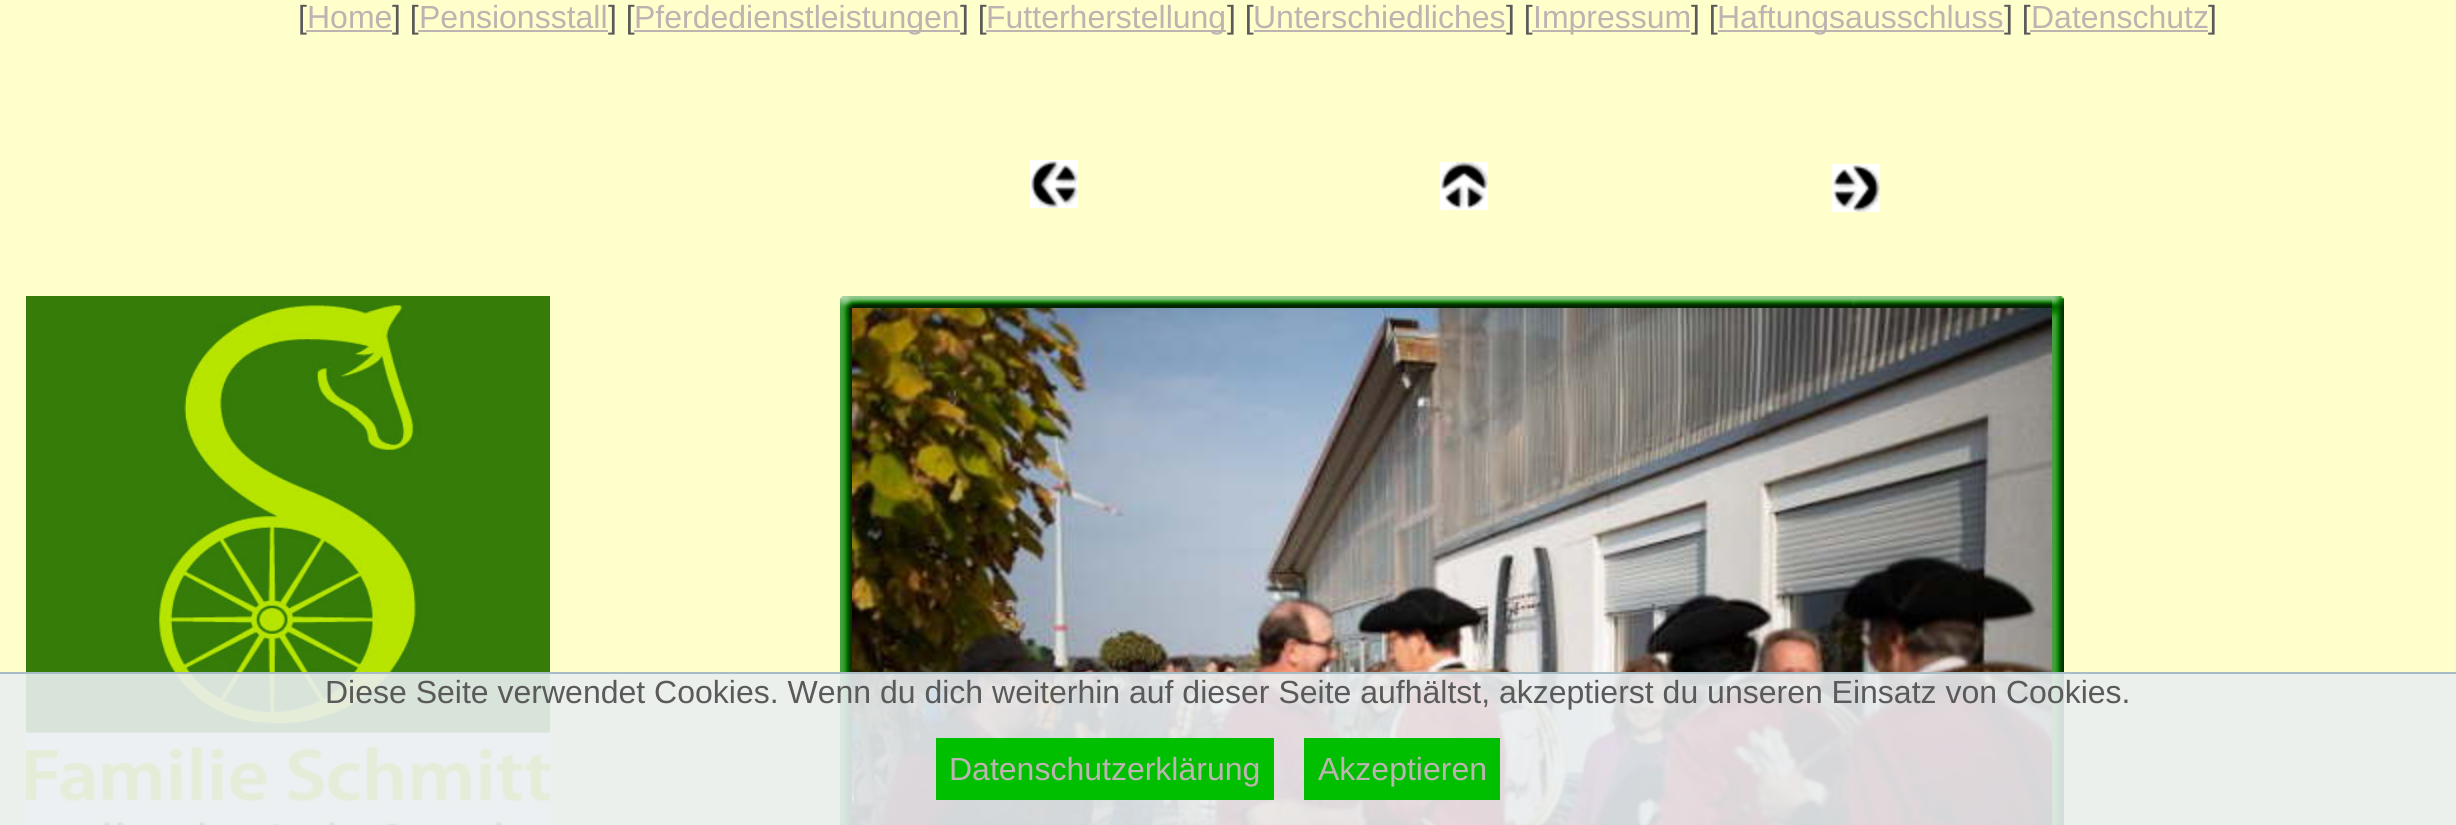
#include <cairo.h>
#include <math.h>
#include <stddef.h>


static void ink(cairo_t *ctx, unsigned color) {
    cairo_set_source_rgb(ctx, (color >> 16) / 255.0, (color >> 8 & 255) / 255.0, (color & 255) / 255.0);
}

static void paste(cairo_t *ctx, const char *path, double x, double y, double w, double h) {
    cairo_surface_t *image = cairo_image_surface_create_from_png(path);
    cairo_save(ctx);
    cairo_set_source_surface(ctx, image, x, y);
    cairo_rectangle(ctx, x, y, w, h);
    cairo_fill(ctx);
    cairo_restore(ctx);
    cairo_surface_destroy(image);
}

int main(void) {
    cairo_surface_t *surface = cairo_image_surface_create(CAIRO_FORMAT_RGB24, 2456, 825);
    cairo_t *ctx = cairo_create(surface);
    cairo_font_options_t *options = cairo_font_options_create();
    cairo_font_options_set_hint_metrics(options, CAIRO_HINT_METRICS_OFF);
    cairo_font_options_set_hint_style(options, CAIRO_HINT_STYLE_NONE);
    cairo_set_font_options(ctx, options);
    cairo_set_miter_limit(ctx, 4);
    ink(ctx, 0xFFFFCC);
    cairo_paint(ctx);
    cairo_select_font_face(ctx, "Liberation Sans", CAIRO_FONT_SLANT_NORMAL, CAIRO_FONT_WEIGHT_NORMAL);
    cairo_set_font_size(ctx, 32);
    ink(ctx, 0x5A5A5A);
    cairo_move_to(ctx, 298, 28);
    cairo_show_text(ctx, "[");
    ink(ctx, 0xBDB3B1);
    cairo_move_to(ctx, 307, 28);
    cairo_show_text(ctx, "Home");
    cairo_rectangle(ctx, 306, 30, 86, 2);
    cairo_fill(ctx);
    ink(ctx, 0x5A5A5A);
    cairo_move_to(ctx, 392, 28);
    cairo_show_text(ctx, "] [");
    ink(ctx, 0xBDB3B1);
    cairo_move_to(ctx, 419, 28);
    cairo_show_text(ctx, "Pensionsstall");
    cairo_rectangle(ctx, 418, 30, 190, 2);
    cairo_fill(ctx);
    ink(ctx, 0x5A5A5A);
    cairo_move_to(ctx, 608, 28);
    cairo_show_text(ctx, "] [");
    ink(ctx, 0xBDB3B1);
    cairo_rectangle(ctx, 634, 30, 326, 2);
    cairo_fill(ctx);
    cairo_move_to(ctx, 634, 28);
    cairo_show_text(ctx, "Pferdedienstleistungen");
    ink(ctx, 0x5A5A5A);
    cairo_move_to(ctx, 960, 28);
    cairo_show_text(ctx, "] [");
    ink(ctx, 0xBDB3B1);
    cairo_rectangle(ctx, 986, 30, 240, 2);
    cairo_fill(ctx);
    cairo_move_to(ctx, 986, 28);
    cairo_show_text(ctx, "Futterherstellung");
    ink(ctx, 0x5A5A5A);
    cairo_move_to(ctx, 1227, 28);
    cairo_show_text(ctx, "] [");
    ink(ctx, 0xBDB3B1);
    cairo_move_to(ctx, 1253, 28);
    cairo_show_text(ctx, "Unterschiedliches");
    cairo_rectangle(ctx, 1254, 30, 252, 2);
    cairo_fill(ctx);
    ink(ctx, 0x5A5A5A);
    cairo_move_to(ctx, 1506, 28);
    cairo_show_text(ctx, "] [");
    ink(ctx, 0xBDB3B1);
    cairo_rectangle(ctx, 1532, 30, 158, 2);
    cairo_fill(ctx);
    cairo_move_to(ctx, 1533, 28);
    cairo_show_text(ctx, "Impressum");
    ink(ctx, 0x5A5A5A);
    cairo_move_to(ctx, 1691, 28);
    cairo_show_text(ctx, "] [");
    ink(ctx, 0xBDB3B1);
    cairo_rectangle(ctx, 1718, 30, 286, 2);
    cairo_fill(ctx);
    cairo_move_to(ctx, 1717, 28);
    cairo_show_text(ctx, "Haftungsausschluss");
    ink(ctx, 0x5A5A5A);
    cairo_move_to(ctx, 2004, 28);
    cairo_show_text(ctx, "] [");
    ink(ctx, 0xBDB3B1);
    cairo_move_to(ctx, 2031, 28);
    cairo_show_text(ctx, "Datenschutz");
    cairo_rectangle(ctx, 2030, 30, 178, 2);
    cairo_fill(ctx);
    ink(ctx, 0x5A5A5A);
    cairo_move_to(ctx, 2208, 28);
    cairo_show_text(ctx, "]");
    paste(ctx, "media/1.png", 26, 296, 524, 529);
    paste(ctx, "media/2.png", 1030, 160, 48, 48);
    paste(ctx, "media/3.png", 1440, 162, 48, 48);
    paste(ctx, "media/4.png", 1832, 164, 48, 48);
    paste(ctx, "media/5.png", 840, 296, 12, 12);
    paste(ctx, "media/6.png", 852, 296, 1200, 12);
    paste(ctx, "media/7.png", 2052, 296, 12, 12);
    paste(ctx, "media/8.png", 840, 308, 12, 517);
    paste(ctx, "media/9.png", 852, 308, 1200, 517);
    paste(ctx, "media/10.png", 2052, 308, 12, 517);
    cairo_set_source_rgba(ctx, 0.918, 0.937, 0.945, 0.9);
    cairo_rectangle(ctx, 0, 674, 2456, 151);
    cairo_fill(ctx);
    ink(ctx, 0xA8BCC6);
    cairo_rectangle(ctx, 0, 672, 2456, 2);
    cairo_fill(ctx);
    ink(ctx, 0x5A5A5A);
    cairo_move_to(ctx, 325, 703);
    cairo_show_text(ctx, "Diese Seite verwendet Cookies. Wenn du dich weiterhin auf dieser Seite aufhältst, akzeptierst du unseren Einsatz von Cookies.");
    ink(ctx, 0x00BF00);
    cairo_rectangle(ctx, 936, 738, 338, 62);
    cairo_fill(ctx);
    ink(ctx, 0xBDB3B1);
    cairo_move_to(ctx, 949, 780);
    cairo_show_text(ctx, "Datenschutzerklärung");
    ink(ctx, 0x00BF00);
    cairo_rectangle(ctx, 1304, 738, 196, 62);
    cairo_fill(ctx);
    ink(ctx, 0xBDB3B1);
    cairo_move_to(ctx, 1318, 780);
    cairo_show_text(ctx, "Akzeptieren");
    cairo_surface_write_to_png(surface, "image.png");
    cairo_font_options_destroy(options);
    cairo_destroy(ctx);
    cairo_surface_destroy(surface);
    return 0;
}
